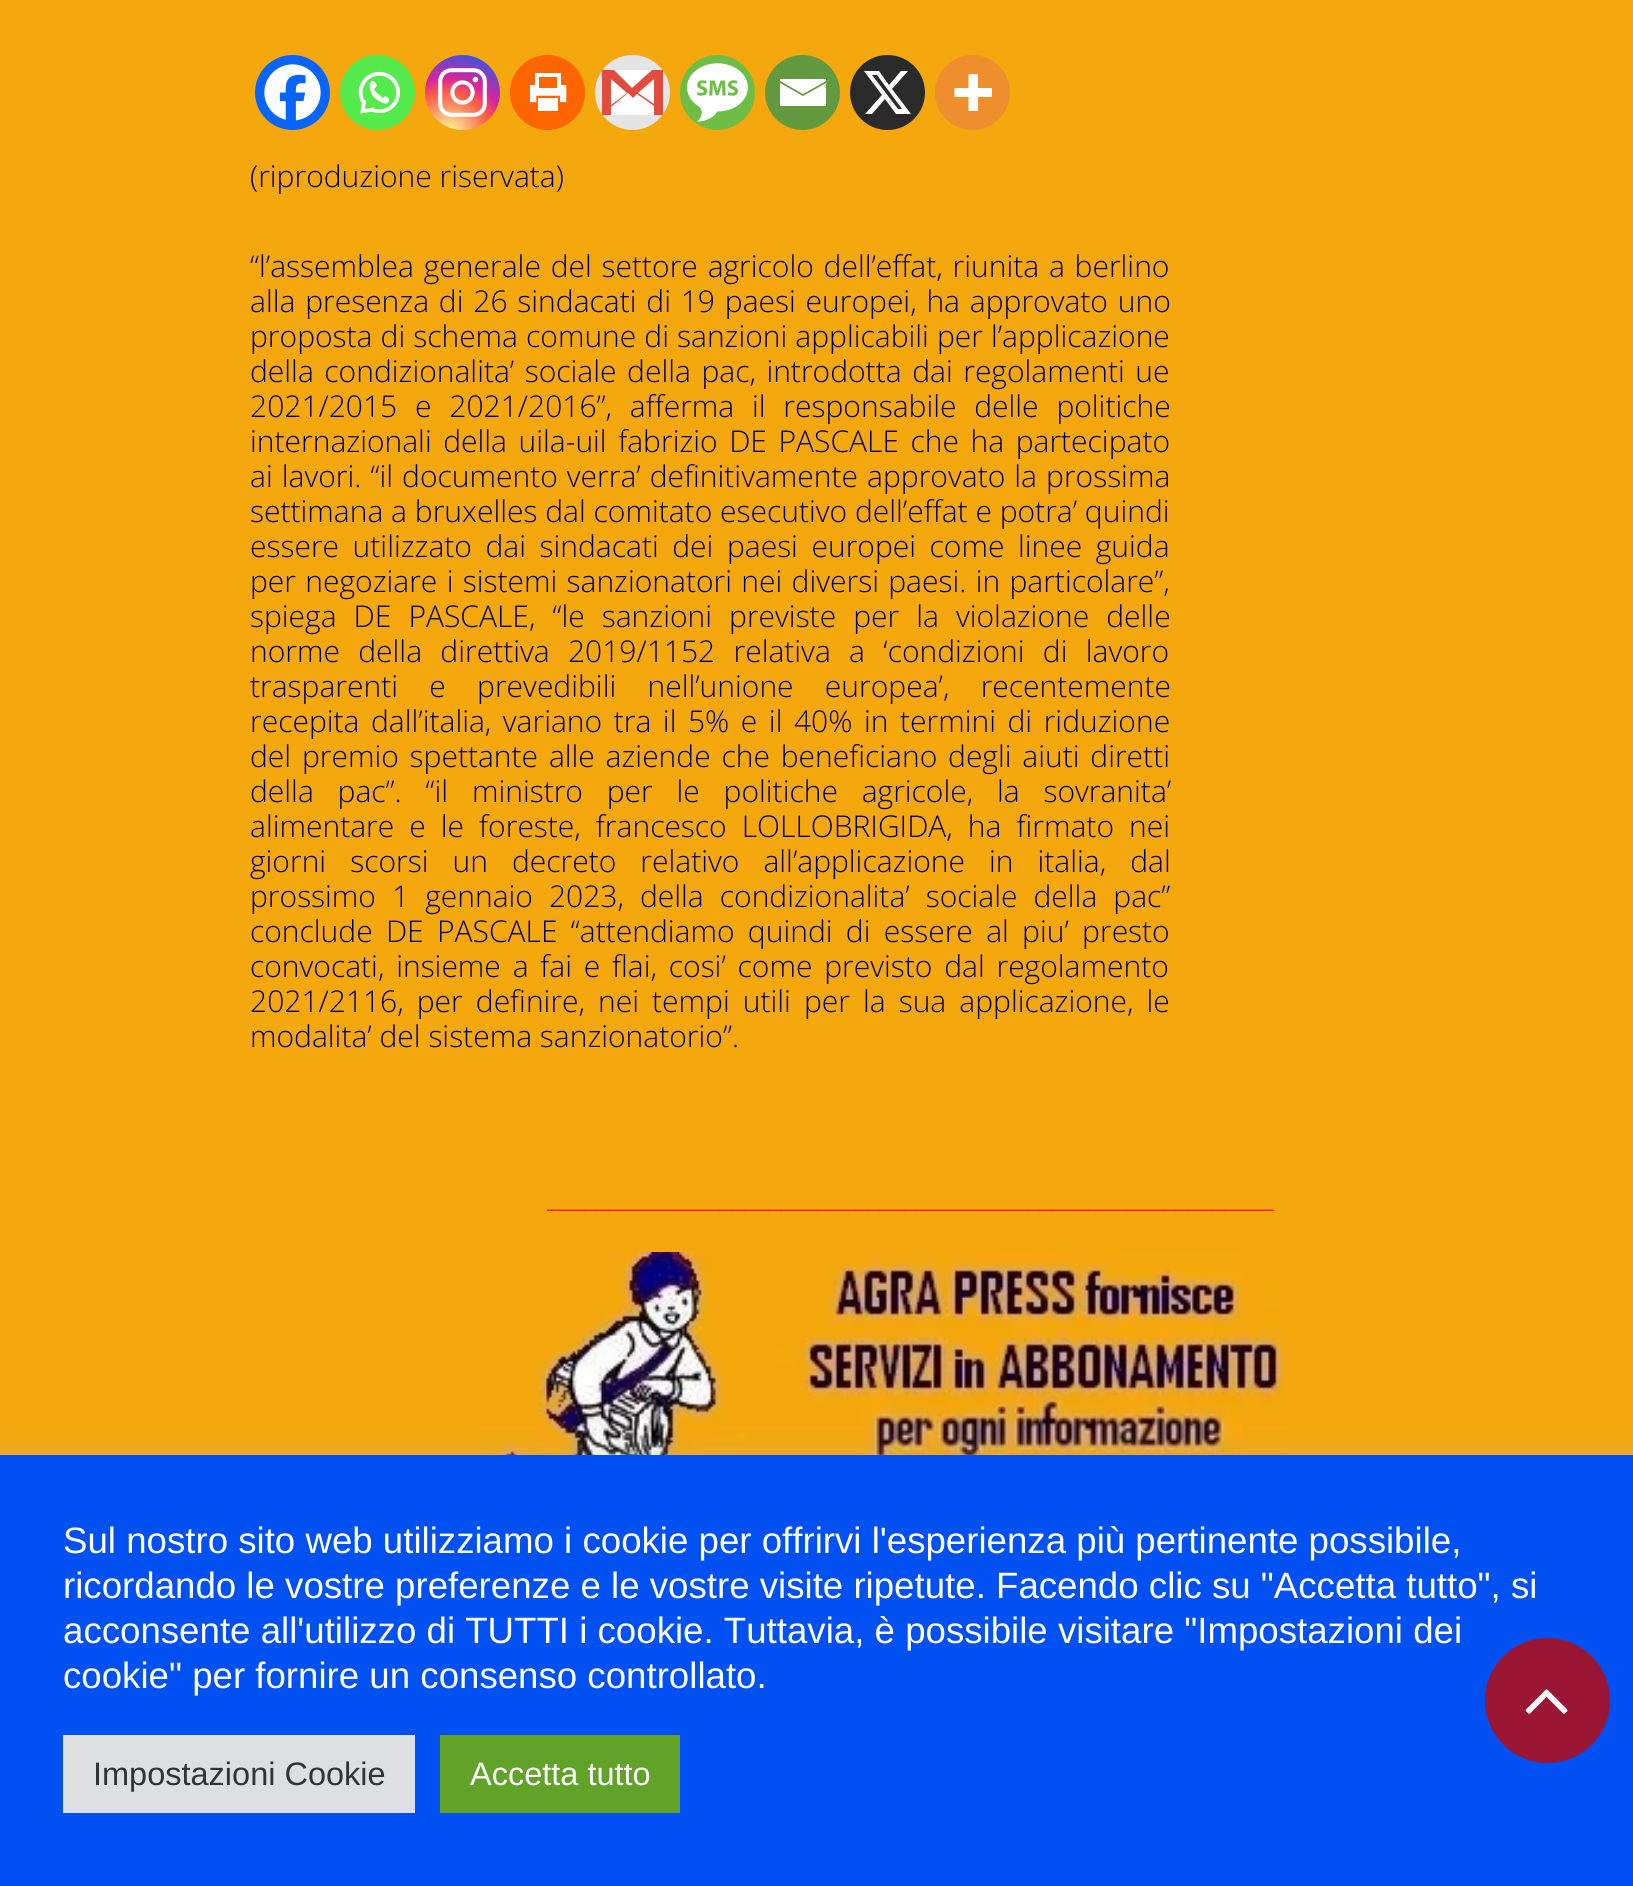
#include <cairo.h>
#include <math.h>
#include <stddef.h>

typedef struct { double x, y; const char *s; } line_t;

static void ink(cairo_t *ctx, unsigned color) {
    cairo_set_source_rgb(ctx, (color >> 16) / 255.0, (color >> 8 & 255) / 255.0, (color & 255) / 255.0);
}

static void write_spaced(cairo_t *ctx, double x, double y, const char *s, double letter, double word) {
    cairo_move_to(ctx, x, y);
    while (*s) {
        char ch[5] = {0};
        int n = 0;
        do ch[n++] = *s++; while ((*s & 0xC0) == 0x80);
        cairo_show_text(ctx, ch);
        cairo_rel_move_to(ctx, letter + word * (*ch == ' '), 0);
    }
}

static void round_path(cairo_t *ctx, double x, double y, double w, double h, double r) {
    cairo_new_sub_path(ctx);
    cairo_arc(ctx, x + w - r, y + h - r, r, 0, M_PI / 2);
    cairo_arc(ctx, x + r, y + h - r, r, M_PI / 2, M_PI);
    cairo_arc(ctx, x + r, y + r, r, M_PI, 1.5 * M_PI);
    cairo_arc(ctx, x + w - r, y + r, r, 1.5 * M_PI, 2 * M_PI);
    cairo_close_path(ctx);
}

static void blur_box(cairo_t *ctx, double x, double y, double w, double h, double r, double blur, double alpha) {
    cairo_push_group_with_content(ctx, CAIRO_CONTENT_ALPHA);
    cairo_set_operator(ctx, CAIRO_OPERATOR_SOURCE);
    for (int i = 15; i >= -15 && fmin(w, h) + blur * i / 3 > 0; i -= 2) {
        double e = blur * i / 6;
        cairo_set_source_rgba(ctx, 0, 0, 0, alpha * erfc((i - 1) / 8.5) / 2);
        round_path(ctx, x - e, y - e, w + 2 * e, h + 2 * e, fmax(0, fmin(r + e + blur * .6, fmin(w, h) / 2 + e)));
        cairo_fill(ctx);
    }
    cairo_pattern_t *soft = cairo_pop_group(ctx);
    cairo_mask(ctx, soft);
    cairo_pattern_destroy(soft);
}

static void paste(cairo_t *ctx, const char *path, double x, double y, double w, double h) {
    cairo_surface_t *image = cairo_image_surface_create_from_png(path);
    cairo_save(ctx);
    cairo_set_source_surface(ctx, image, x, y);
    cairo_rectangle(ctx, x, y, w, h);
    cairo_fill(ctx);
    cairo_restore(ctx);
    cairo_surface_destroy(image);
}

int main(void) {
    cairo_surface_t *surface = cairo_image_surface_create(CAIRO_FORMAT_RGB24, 1633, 1886);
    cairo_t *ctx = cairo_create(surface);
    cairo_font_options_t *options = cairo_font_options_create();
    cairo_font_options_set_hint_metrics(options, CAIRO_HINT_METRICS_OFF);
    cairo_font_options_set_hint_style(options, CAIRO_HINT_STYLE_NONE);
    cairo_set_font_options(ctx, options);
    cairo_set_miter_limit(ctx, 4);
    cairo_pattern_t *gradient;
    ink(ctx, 0xF4A80E);
    cairo_paint(ctx);
    ink(ctx, 0x0765FE);
    cairo_arc(ctx, 292.5, 92.5, 37.5, 0, 2 * M_PI);
    cairo_fill(ctx);
    paste(ctx, "media/1.png", 264, 64, 57, 57);
    ink(ctx, 0x55EB4C);
    cairo_arc(ctx, 377.5, 92.5, 37.5, 0, 2 * M_PI);
    cairo_fill(ctx);
    paste(ctx, "media/2.png", 358, 71, 42, 43);
    gradient = cairo_pattern_create_radial(448, 135, 0, 448, 135, 96);
    cairo_pattern_add_color_stop_rgba(gradient, 0, 0.992, 0.957, 0.592, 1);
    cairo_pattern_add_color_stop_rgba(gradient, 0.05, 0.992, 0.957, 0.592, 1);
    cairo_pattern_add_color_stop_rgba(gradient, 0.45, 0.992, 0.349, 0.286, 1);
    cairo_pattern_add_color_stop_rgba(gradient, 0.6, 0.839, 0.141, 0.624, 1);
    cairo_pattern_add_color_stop_rgba(gradient, 0.9, 0.157, 0.353, 0.922, 1);
    cairo_set_source(ctx, gradient);
    cairo_pattern_destroy(gradient);
    cairo_arc(ctx, 462.5, 92.5, 37.5, 0, 2 * M_PI);
    cairo_fill(ctx);
    paste(ctx, "media/3.png", 438, 68, 49, 49);
    ink(ctx, 0xFD6500);
    cairo_arc(ctx, 547.5, 92.5, 37.5, 0, 2 * M_PI);
    cairo_fill(ctx);
    paste(ctx, "media/4.png", 529, 73, 38, 38);
    ink(ctx, 0xE5E5E5);
    cairo_arc(ctx, 632.5, 92.5, 37.5, 0, 2 * M_PI);
    cairo_fill(ctx);
    ink(ctx, 0xFFFFFF);
    cairo_rectangle(ctx, 611, 70, 43, 45);
    cairo_fill(ctx);
    ink(ctx, 0xE14C41);
    cairo_set_fill_rule(ctx, CAIRO_FILL_RULE_EVEN_ODD);
    cairo_new_path(ctx);
    cairo_move_to(ctx, 654, 106);
    cairo_line_to(ctx, 654, 115);
    cairo_line_to(ctx, 663, 115);
    cairo_line_to(ctx, 663, 114);
    cairo_line_to(ctx, 663, 71);
    cairo_line_to(ctx, 663, 70);
    cairo_line_to(ctx, 652, 70);
    cairo_line_to(ctx, 632, 88);
    cairo_line_to(ctx, 614, 70);
    cairo_line_to(ctx, 602, 70);
    cairo_line_to(ctx, 602, 71);
    cairo_line_to(ctx, 602, 114);
    cairo_line_to(ctx, 602, 115);
    cairo_line_to(ctx, 611, 115);
    cairo_line_to(ctx, 611, 107);
    cairo_line_to(ctx, 628, 93);
    cairo_line_to(ctx, 633, 98);
    cairo_line_to(ctx, 637, 94);
    cairo_close_path(ctx);
    cairo_move_to(ctx, 627, 93);
    cairo_line_to(ctx, 611, 105);
    cairo_line_to(ctx, 611, 79);
    cairo_close_path(ctx);
    cairo_move_to(ctx, 654, 104);
    cairo_line_to(ctx, 638, 93);
    cairo_line_to(ctx, 654, 79);
    cairo_close_path(ctx);
    cairo_fill(ctx);
    ink(ctx, 0x6EBE45);
    cairo_arc(ctx, 717.5, 92.5, 37.5, 0, 2 * M_PI);
    cairo_fill(ctx);
    paste(ctx, "media/5.png", 687, 63, 61, 59);
    ink(ctx, 0x649A3F);
    cairo_arc(ctx, 802.5, 92.5, 37.5, 0, 2 * M_PI);
    cairo_fill(ctx);
    ink(ctx, 0xFFFFFF);
    cairo_set_fill_rule(ctx, CAIRO_FILL_RULE_WINDING);
    cairo_new_path(ctx);
    cairo_move_to(ctx, 778, 79);
    cairo_line_to(ctx, 826, 79);
    cairo_line_to(ctx, 826, 81);
    cairo_line_to(ctx, 803, 94);
    cairo_line_to(ctx, 780, 81);
    cairo_line_to(ctx, 780, 79);
    cairo_move_to(ctx, 780, 83);
    cairo_line_to(ctx, 803, 96);
    cairo_line_to(ctx, 826, 83);
    cairo_line_to(ctx, 826, 106);
    cairo_line_to(ctx, 780, 106);
    cairo_line_to(ctx, 780, 83);
    cairo_fill(ctx);
    ink(ctx, 0x2A2A2A);
    cairo_arc(ctx, 887.5, 92.5, 37.5, 0, 2 * M_PI);
    cairo_fill(ctx);
    ink(ctx, 0xFFFFFF);
    cairo_new_path(ctx);
    cairo_move_to(ctx, 901, 71);
    cairo_line_to(ctx, 908, 71);
    cairo_line_to(ctx, 892, 89);
    cairo_line_to(ctx, 911, 114);
    cairo_line_to(ctx, 896, 114);
    cairo_line_to(ctx, 885, 99);
    cairo_line_to(ctx, 872, 114);
    cairo_line_to(ctx, 865, 114);
    cairo_line_to(ctx, 882, 95);
    cairo_line_to(ctx, 864, 71);
    cairo_line_to(ctx, 879, 71);
    cairo_line_to(ctx, 889, 85);
    cairo_close_path(ctx);
    cairo_move_to(ctx, 898, 109);
    cairo_line_to(ctx, 902, 109);
    cairo_line_to(ctx, 877, 75);
    cairo_line_to(ctx, 872, 75);
    cairo_close_path(ctx);
    cairo_fill(ctx);
    ink(ctx, 0xEE8E2D);
    cairo_arc(ctx, 972.5, 92.5, 37.5, 0, 2 * M_PI);
    cairo_fill(ctx);
    ink(ctx, 0xFFFFFF);
    cairo_set_fill_rule(ctx, CAIRO_FILL_RULE_EVEN_ODD);
    cairo_new_path(ctx);
    cairo_move_to(ctx, 978, 88);
    cairo_line_to(ctx, 978, 74);
    cairo_line_to(ctx, 968.5, 74);
    cairo_line_to(ctx, 968.5, 88);
    cairo_line_to(ctx, 954.5, 88);
    cairo_line_to(ctx, 954.5, 97);
    cairo_line_to(ctx, 968.5, 97);
    cairo_line_to(ctx, 968.5, 111);
    cairo_line_to(ctx, 978, 111);
    cairo_line_to(ctx, 978, 97);
    cairo_line_to(ctx, 992, 97);
    cairo_line_to(ctx, 992, 88);
    cairo_close_path(ctx);
    cairo_fill(ctx);
    cairo_select_font_face(ctx, "Open Sans Light", CAIRO_FONT_SLANT_NORMAL, CAIRO_FONT_WEIGHT_NORMAL);
    cairo_set_font_size(ctx, 30);
    ink(ctx, 0x000066);
    cairo_move_to(ctx, 250, 187);
    cairo_show_text(ctx, "(riproduzione riservata)");
    write_spaced(ctx, 250, 277, "“l’assemblea generale del settore agricolo dell’effat, riunita a berlino", 0, 2);
    write_spaced(ctx, 250, 312, "alla presenza di 26 sindacati di 19 paesi europei, ha approvato uno", 0, 2);
    write_spaced(ctx, 250, 347, "proposta di schema comune di sanzioni applicabili per l’applicazione", 0, 0.25);
    write_spaced(ctx, 250, 382, "della condizionalita’ sociale della pac, introdotta dai regolamenti ue", 0, 2.75);
    write_spaced(ctx, 250, 417, "2021/2015 e 2021/2016”, afferma il responsabile delle politiche", 0, 10);
    write_spaced(ctx, 250, 452, "internazionali della uila-uil fabrizio DE PASCALE che ha partecipato", 0, 3.75);
    write_spaced(ctx, 250, 487, "ai lavori. “il documento verra’ definitivamente approvato la prossima", 0, 1.25);
    cairo_move_to(ctx, 250, 522);
    cairo_show_text(ctx, "settimana a bruxelles dal comitato esecutivo dell’effat e potra’ quindi");
    write_spaced(ctx, 250, 557, "essere utilizzato dai sindacati dei paesi europei come linee guida", 0, 5.75);
    write_spaced(ctx, 250, 592, "per negoziare i sistemi sanzionatori nei diversi paesi. in particolare”,", 0, 1.5);
    write_spaced(ctx, 250, 627, "spiega DE PASCALE, “le sanzioni previste per la violazione delle", 0, 9.25);
    write_spaced(ctx, 250, 662, "norme della direttiva 2019/1152 relativa a ‘condizioni di lavoro", 0, 10.5);
    write_spaced(ctx, 250, 697, "trasparenti e prevedibili nell’unione europea’, recentemente", 0, 23.5);
    write_spaced(ctx, 250, 732, "recepita dall’italia, variano tra il 5% e il 40% in termini di riduzione", 0, 3.75);
    write_spaced(ctx, 250, 767, "del premio spettante alle aziende che beneficiano degli aiuti diretti", 0, 3);
    write_spaced(ctx, 250, 802, "della pac”. “il ministro per le politiche agricole, la sovranita’", 0, 16);
    write_spaced(ctx, 250, 837, "alimentare e le foreste, francesco LOLLOBRIGIDA, ha firmato nei", 0, 7.25);
    write_spaced(ctx, 250, 872, "giorni scorsi un decreto relativo all’applicazione in italia, dal", 0, 16.25);
    write_spaced(ctx, 250, 907, "prossimo 1 gennaio 2023, della condizionalita’ sociale della pac”", 0, 8.25);
    write_spaced(ctx, 250, 942, "conclude DE PASCALE “attendiamo quindi di essere al piu’ presto", 0, 5.5);
    write_spaced(ctx, 250, 977, "convocati, insieme a fai e flai, cosi’ come previsto dal regolamento", 0, 4);
    write_spaced(ctx, 250, 1012, "2021/2116, per definire, nei tempi utili per la sua applicazione, le", 0, 5.25);
    cairo_move_to(ctx, 250, 1047);
    cairo_show_text(ctx, "modalita’ del sistema sanzionatorio”.");
    ink(ctx, 0xFF0000);
    cairo_move_to(ctx, 547, 1207);
    cairo_show_text(ctx, "___________________________________________________________");
    paste(ctx, "media/6.png", 482, 1252, 804, 203);
    ink(ctx, 0xACABAB);
    blur_box(ctx, 0, 1453, 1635, 432, 0, 12.5, 0.3);
    ink(ctx, 0x0050F2);
    cairo_rectangle(ctx, 0, 1455, 1633, 431);
    cairo_fill(ctx);
    cairo_select_font_face(ctx, "Liberation Sans", CAIRO_FONT_SLANT_NORMAL, CAIRO_FONT_WEIGHT_NORMAL);
    cairo_set_font_size(ctx, 36.65);
    ink(ctx, 0xFFFFFF);
    {
        static const line_t items[] = {
            {63, 1553, "Sul nostro sito web utilizziamo i cookie per offrirvi l'esperienza più pertinente possibile,"},
            {63, 1598, "ricordando le vostre preferenze e le vostre visite ripetute. Facendo clic su \"Accetta tutto\", si"},
            {63, 1643, "acconsente all'utilizzo di TUTTI i cookie. Tuttavia, è possibile visitare \"Impostazioni dei"},
            {63, 1688, "cookie\" per fornire un consenso controllato."},
        };
        for (size_t i = 0; i < sizeof items / sizeof *items; i++) {
            cairo_move_to(ctx, items[i].x, items[i].y);
            cairo_show_text(ctx, items[i].s);
        }
    }
    ink(ctx, 0xDEDFE0);
    cairo_rectangle(ctx, 63, 1735, 352, 78);
    cairo_fill(ctx);
    cairo_set_font_size(ctx, 32.5);
    ink(ctx, 0x333333);
    cairo_move_to(ctx, 93, 1785);
    cairo_show_text(ctx, "Impostazioni Cookie");
    ink(ctx, 0x61A229);
    cairo_rectangle(ctx, 440, 1735, 240, 78);
    cairo_fill(ctx);
    ink(ctx, 0xFFFFFF);
    cairo_move_to(ctx, 470, 1785);
    cairo_show_text(ctx, "Accetta tutto");
    ink(ctx, 0x9B1634);
    cairo_new_path(ctx);
    cairo_arc(ctx, 1547.5, 1700.5, 62.5, 0, 2 * M_PI);
    cairo_fill(ctx);
    paste(ctx, "media/7.png", 1525, 1689, 43, 25);
    cairo_surface_write_to_png(surface, "image.png");
    cairo_font_options_destroy(options);
    cairo_destroy(ctx);
    cairo_surface_destroy(surface);
    return 0;
}
